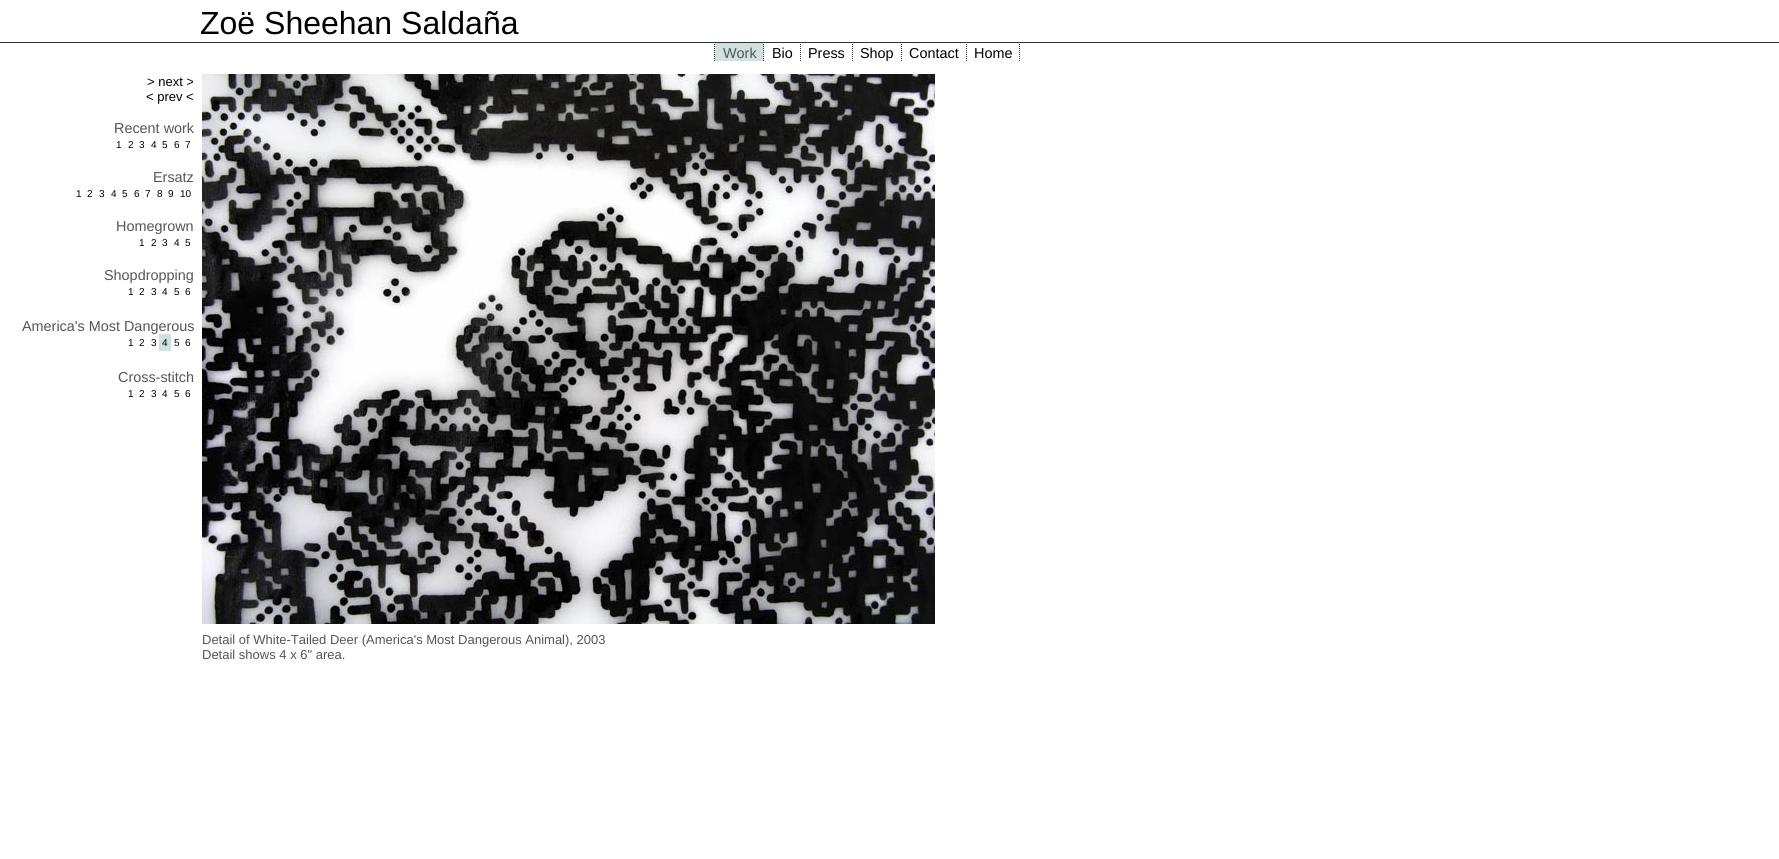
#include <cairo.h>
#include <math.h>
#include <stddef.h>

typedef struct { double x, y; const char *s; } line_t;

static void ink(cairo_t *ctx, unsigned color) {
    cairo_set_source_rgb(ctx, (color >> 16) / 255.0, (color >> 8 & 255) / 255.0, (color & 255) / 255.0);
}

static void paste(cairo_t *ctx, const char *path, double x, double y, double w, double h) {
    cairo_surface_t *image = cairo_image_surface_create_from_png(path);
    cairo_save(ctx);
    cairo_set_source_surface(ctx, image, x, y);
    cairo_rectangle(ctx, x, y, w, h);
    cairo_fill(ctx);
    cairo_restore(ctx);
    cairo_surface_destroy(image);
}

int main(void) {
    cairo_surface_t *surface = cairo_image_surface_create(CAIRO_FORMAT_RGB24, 1779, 859);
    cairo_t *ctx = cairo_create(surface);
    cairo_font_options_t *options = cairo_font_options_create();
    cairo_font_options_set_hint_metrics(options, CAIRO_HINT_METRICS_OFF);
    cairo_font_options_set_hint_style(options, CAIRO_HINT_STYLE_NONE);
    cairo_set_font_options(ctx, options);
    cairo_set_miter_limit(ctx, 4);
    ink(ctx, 0xFFFFFF);
    cairo_paint(ctx);
    cairo_select_font_face(ctx, "Liberation Sans", CAIRO_FONT_SLANT_NORMAL, CAIRO_FONT_WEIGHT_NORMAL);
    cairo_set_font_size(ctx, 32);
    ink(ctx, 0x000000);
    cairo_move_to(ctx, 200, 34);
    cairo_show_text(ctx, "Zoë Sheehan Saldaña");
    ink(ctx, 0x333333);
    cairo_rectangle(ctx, 0, 42, 1779, 1);
    cairo_fill(ctx);
    cairo_new_path(ctx);
    cairo_move_to(ctx, 714.5, 42);
    cairo_line_to(ctx, 714.5, 61);
    cairo_set_line_width(ctx, 1);
    cairo_set_dash(ctx, (double[]){1, 1}, 2, 0);
    cairo_stroke(ctx);
    ink(ctx, 0xCEE0E0);
    cairo_rectangle(ctx, 715, 43, 49, 18);
    cairo_fill(ctx);
    cairo_new_path(ctx);
    cairo_move_to(ctx, 763.5, 42);
    cairo_line_to(ctx, 763.5, 61);
    cairo_move_to(ctx, 800.5, 42);
    cairo_line_to(ctx, 800.5, 61);
    ink(ctx, 0x333333);
    cairo_stroke(ctx);
    cairo_set_font_size(ctx, 14.4);
    ink(ctx, 0x555555);
    cairo_move_to(ctx, 723, 58);
    cairo_show_text(ctx, "Work");
    ink(ctx, 0x000000);
    cairo_move_to(ctx, 772, 58);
    cairo_show_text(ctx, "Bio");
    cairo_new_path(ctx);
    cairo_move_to(ctx, 852.5, 42);
    cairo_line_to(ctx, 852.5, 61);
    cairo_move_to(ctx, 901.5, 42);
    cairo_line_to(ctx, 901.5, 61);
    ink(ctx, 0x333333);
    cairo_stroke(ctx);
    ink(ctx, 0x000000);
    cairo_move_to(ctx, 808, 58);
    cairo_show_text(ctx, "Press");
    cairo_move_to(ctx, 860, 58);
    cairo_show_text(ctx, "Shop");
    cairo_new_path(ctx);
    cairo_move_to(ctx, 966.5, 42);
    cairo_line_to(ctx, 966.5, 61);
    cairo_move_to(ctx, 1019.5, 42);
    cairo_line_to(ctx, 1019.5, 61);
    ink(ctx, 0x333333);
    cairo_stroke(ctx);
    ink(ctx, 0x000000);
    cairo_move_to(ctx, 909, 58);
    cairo_show_text(ctx, "Contact");
    cairo_move_to(ctx, 974, 58);
    cairo_show_text(ctx, "Home");
    cairo_set_font_size(ctx, 13);
    cairo_move_to(ctx, 147, 86);
    cairo_show_text(ctx, "> next >");
    cairo_move_to(ctx, 146, 101);
    cairo_show_text(ctx, "< prev <");
    cairo_set_font_size(ctx, 14.4);
    ink(ctx, 0x555555);
    cairo_move_to(ctx, 114, 133);
    cairo_show_text(ctx, "Recent work");
    cairo_set_font_size(ctx, 10);
    ink(ctx, 0x000000);
    {
        static const line_t items[] = {
            {116, 148, "1"},
            {128, 148, "2"},
            {139, 148, "3"},
            {151, 148, "4"},
            {162, 148, "5"},
            {174, 148, "6"},
            {185, 148, "7"},
        };
        for (size_t i = 0; i < sizeof items / sizeof *items; i++) {
            cairo_move_to(ctx, items[i].x, items[i].y);
            cairo_show_text(ctx, items[i].s);
        }
    }
    cairo_set_font_size(ctx, 14.4);
    ink(ctx, 0x555555);
    cairo_move_to(ctx, 153, 182);
    cairo_show_text(ctx, "Ersatz");
    cairo_set_font_size(ctx, 10);
    ink(ctx, 0x000000);
    {
        static const line_t items[] = {
            {76, 197, "1"},
            {87, 197, "2"},
            {99, 197, "3"},
            {111, 197, "4"},
            {122, 197, "5"},
            {134, 197, "6"},
            {145, 197, "7"},
            {157, 197, "8"},
            {168, 197, "9"},
            {180, 197, "10"},
        };
        for (size_t i = 0; i < sizeof items / sizeof *items; i++) {
            cairo_move_to(ctx, items[i].x, items[i].y);
            cairo_show_text(ctx, items[i].s);
        }
    }
    cairo_set_font_size(ctx, 14.4);
    ink(ctx, 0x555555);
    cairo_move_to(ctx, 116, 231);
    cairo_show_text(ctx, "Homegrown");
    cairo_set_font_size(ctx, 10);
    ink(ctx, 0x000000);
    {
        static const line_t items[] = {
            {139, 246, "1"},
            {151, 246, "2"},
            {162, 246, "3"},
            {174, 246, "4"},
            {185, 246, "5"},
        };
        for (size_t i = 0; i < sizeof items / sizeof *items; i++) {
            cairo_move_to(ctx, items[i].x, items[i].y);
            cairo_show_text(ctx, items[i].s);
        }
    }
    cairo_set_font_size(ctx, 14.4);
    ink(ctx, 0x555555);
    cairo_move_to(ctx, 104, 280);
    cairo_show_text(ctx, "Shopdropping");
    cairo_set_font_size(ctx, 10);
    ink(ctx, 0x000000);
    {
        static const line_t items[] = {
            {128, 295, "1"},
            {139, 295, "2"},
            {151, 295, "3"},
            {162, 295, "4"},
            {174, 295, "5"},
            {185, 295, "6"},
        };
        for (size_t i = 0; i < sizeof items / sizeof *items; i++) {
            cairo_move_to(ctx, items[i].x, items[i].y);
            cairo_show_text(ctx, items[i].s);
        }
    }
    cairo_set_font_size(ctx, 14.4);
    ink(ctx, 0x555555);
    cairo_move_to(ctx, 22, 331);
    cairo_show_text(ctx, "America's Most Dangerous");
    cairo_set_font_size(ctx, 10);
    ink(ctx, 0x000000);
    {
        static const line_t items[] = {
            {128, 346, "1"},
            {139, 346, "2"},
            {151, 346, "3"},
        };
        for (size_t i = 0; i < sizeof items / sizeof *items; i++) {
            cairo_move_to(ctx, items[i].x, items[i].y);
            cairo_show_text(ctx, items[i].s);
        }
    }
    ink(ctx, 0xCEE0E0);
    cairo_rectangle(ctx, 159, 334, 12, 17);
    cairo_fill(ctx);
    ink(ctx, 0x000000);
    {
        static const line_t items[] = {
            {162, 346, "4"},
            {174, 346, "5"},
            {185, 346, "6"},
        };
        for (size_t i = 0; i < sizeof items / sizeof *items; i++) {
            cairo_move_to(ctx, items[i].x, items[i].y);
            cairo_show_text(ctx, items[i].s);
        }
    }
    cairo_set_font_size(ctx, 14.4);
    ink(ctx, 0x555555);
    cairo_move_to(ctx, 118, 382);
    cairo_show_text(ctx, "Cross-stitch");
    cairo_set_font_size(ctx, 10);
    ink(ctx, 0x000000);
    {
        static const line_t items[] = {
            {128, 397, "1"},
            {139, 397, "2"},
            {151, 397, "3"},
            {162, 397, "4"},
            {174, 397, "5"},
            {185, 397, "6"},
        };
        for (size_t i = 0; i < sizeof items / sizeof *items; i++) {
            cairo_move_to(ctx, items[i].x, items[i].y);
            cairo_show_text(ctx, items[i].s);
        }
    }
    paste(ctx, "media/1.png", 202, 74, 733, 550);
    cairo_set_font_size(ctx, 13);
    ink(ctx, 0x555555);
    cairo_move_to(ctx, 202, 644);
    cairo_show_text(ctx, "Detail of White-Tailed Deer (America's Most Dangerous Animal), 2003");
    cairo_move_to(ctx, 202, 659);
    cairo_show_text(ctx, "Detail shows 4 x 6\" area.");
    cairo_surface_write_to_png(surface, "image.png");
    cairo_font_options_destroy(options);
    cairo_destroy(ctx);
    cairo_surface_destroy(surface);
    return 0;
}
